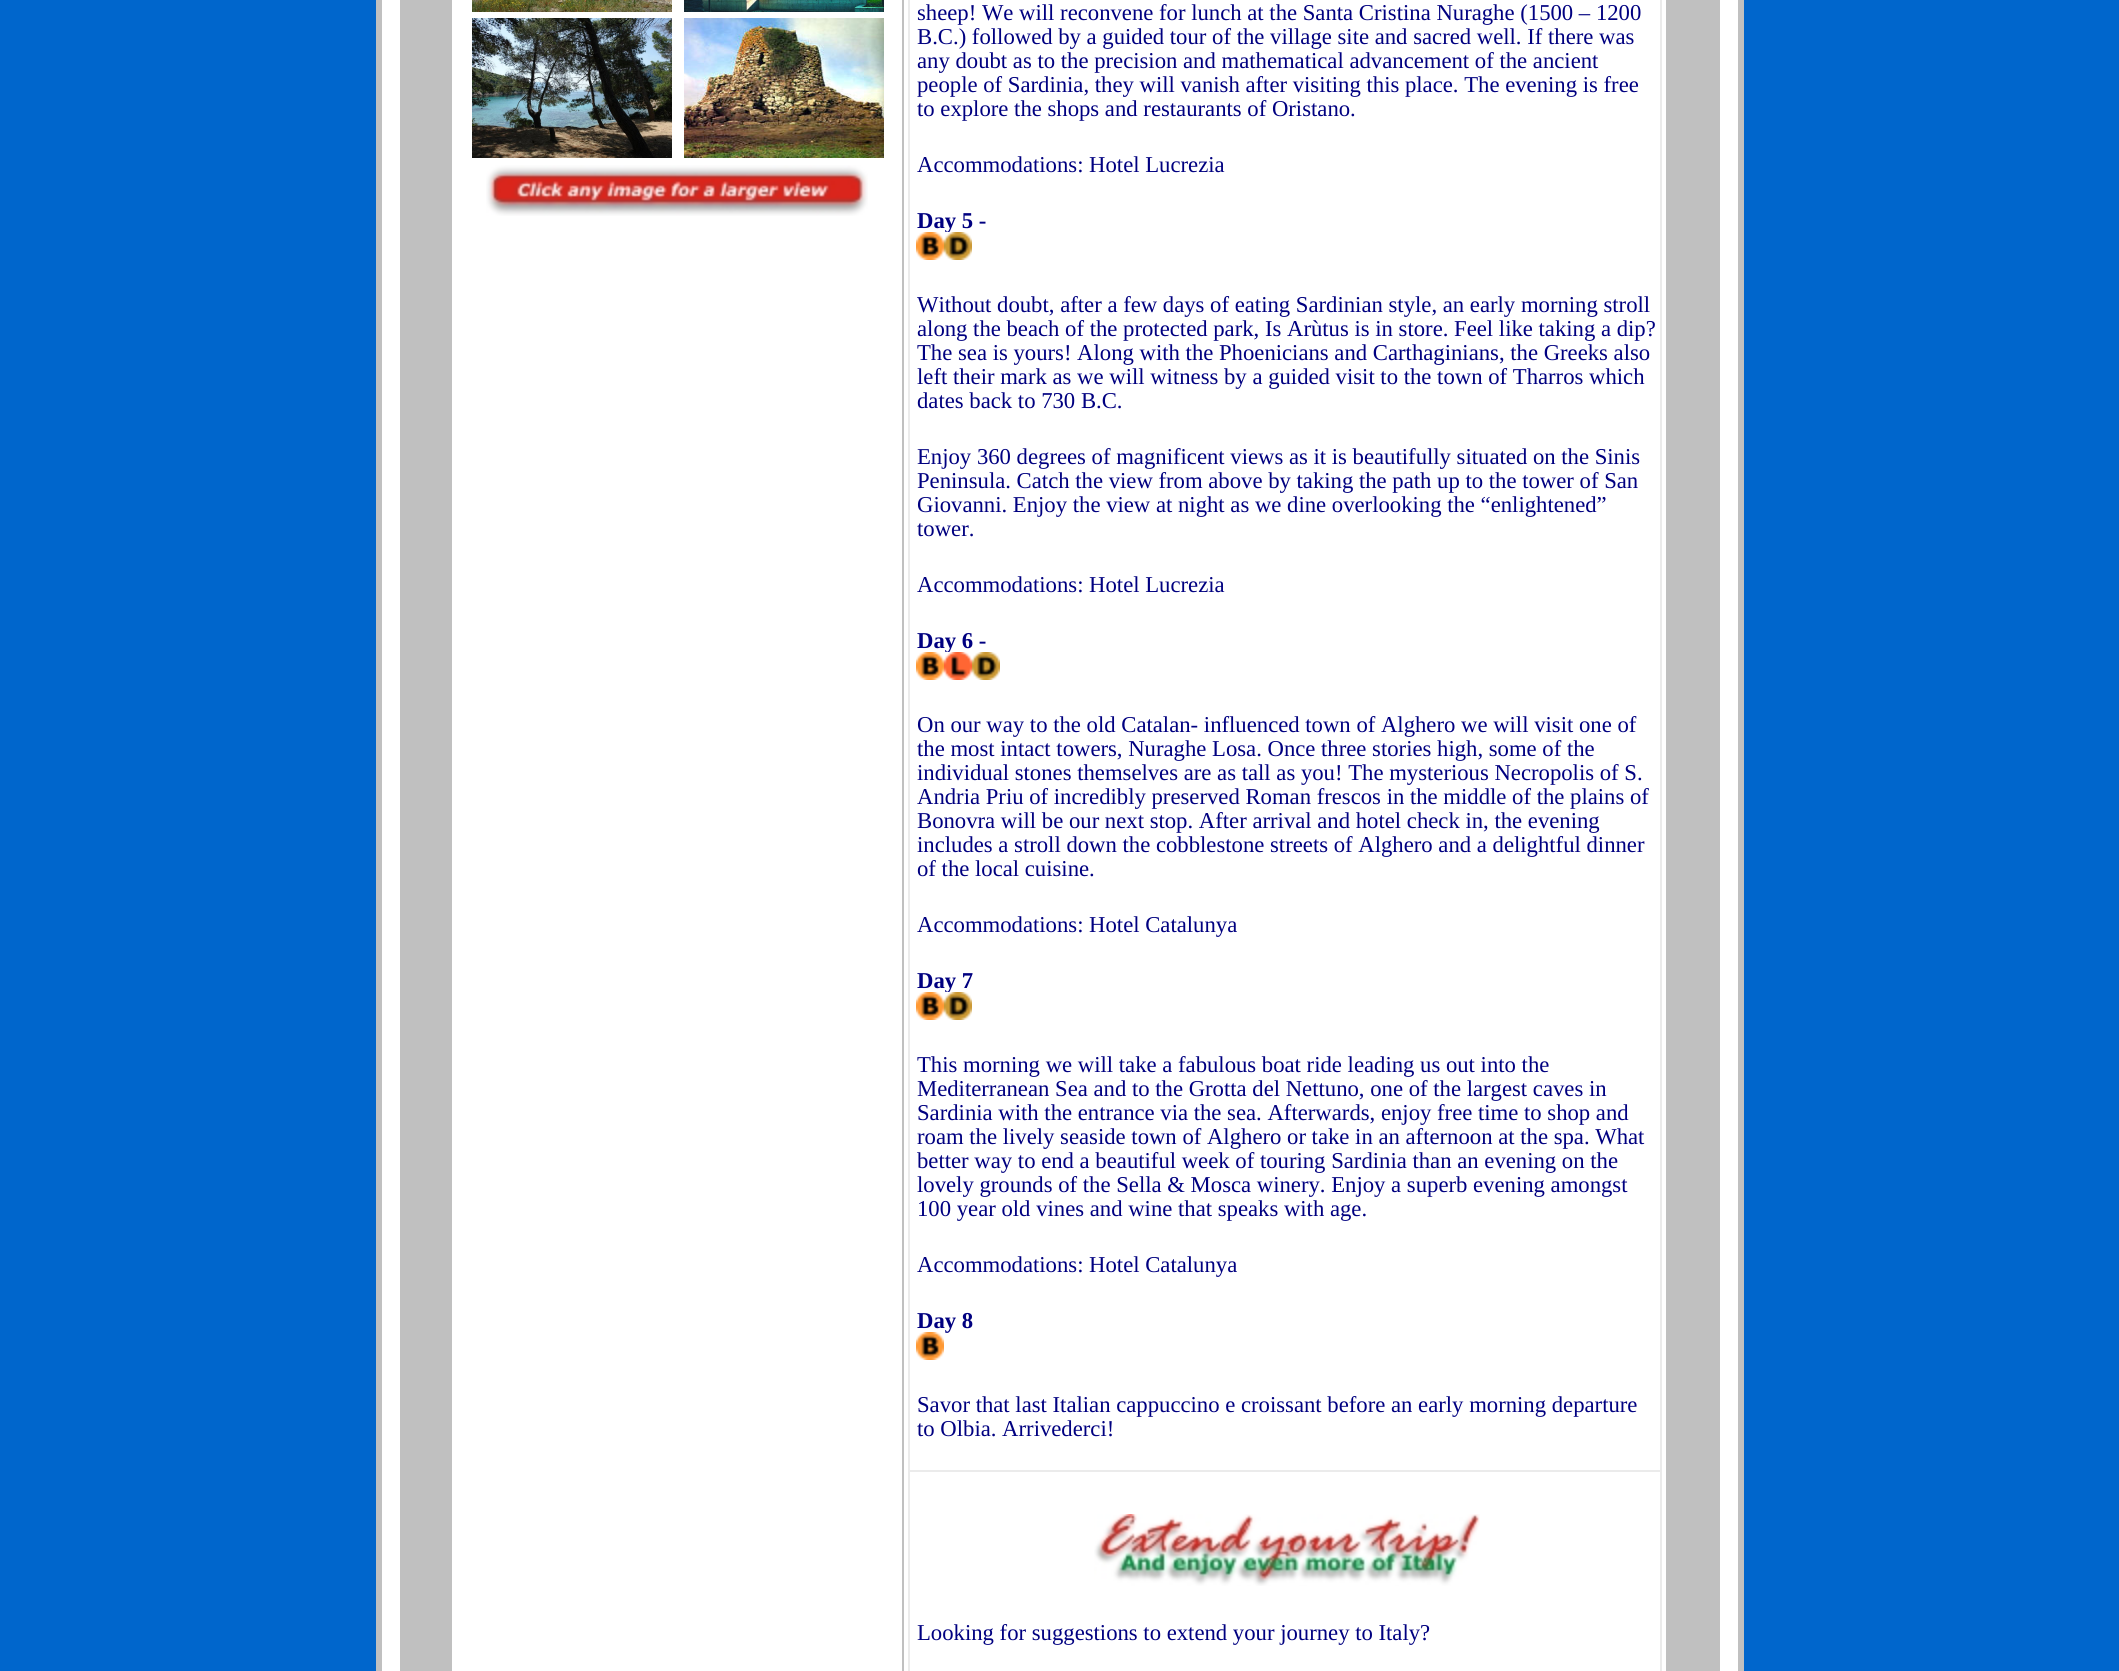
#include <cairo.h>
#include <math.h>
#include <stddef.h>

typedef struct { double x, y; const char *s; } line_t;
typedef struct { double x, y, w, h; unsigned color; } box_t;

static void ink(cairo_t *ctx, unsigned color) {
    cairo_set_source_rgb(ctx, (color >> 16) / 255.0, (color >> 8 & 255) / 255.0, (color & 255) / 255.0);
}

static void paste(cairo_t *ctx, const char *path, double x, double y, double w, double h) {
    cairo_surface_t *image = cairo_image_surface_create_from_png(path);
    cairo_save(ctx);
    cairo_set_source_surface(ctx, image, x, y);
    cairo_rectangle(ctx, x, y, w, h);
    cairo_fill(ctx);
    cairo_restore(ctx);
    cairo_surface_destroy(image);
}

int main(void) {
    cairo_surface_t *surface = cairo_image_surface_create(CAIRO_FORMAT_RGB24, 2119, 1671);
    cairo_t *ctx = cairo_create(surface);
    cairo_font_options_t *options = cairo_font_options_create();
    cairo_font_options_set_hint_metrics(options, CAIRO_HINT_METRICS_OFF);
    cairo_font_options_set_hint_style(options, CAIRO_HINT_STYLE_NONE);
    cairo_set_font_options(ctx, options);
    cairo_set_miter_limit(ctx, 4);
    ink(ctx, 0x0066CC);
    cairo_paint(ctx);
    {
        static const box_t items[] = {
            {376, 0, 1368, 1671, 0xC0C0C0},
            {382, 0, 1356, 1671, 0xFFFFFF},
            {400, 0, 1320, 1671, 0xC0C0C0},
            {452, 0, 450, 1671, 0xFFFFFF},
        };
        for (size_t i = 0; i < sizeof items / sizeof *items; i++) {
            ink(ctx, items[i].color);
            cairo_rectangle(ctx, items[i].x, items[i].y, items[i].w, items[i].h);
            cairo_fill(ctx);
        }
    }
    paste(ctx, "media/1.png", 472, 0, 200, 12);
    paste(ctx, "media/2.png", 684, 0, 200, 12);
    paste(ctx, "media/3.png", 472, 18, 200, 140);
    paste(ctx, "media/4.png", 684, 18, 200, 140);
    paste(ctx, "media/5.png", 486, 165, 382, 51);
    {
        static const box_t items[] = {
            {904, 0, 762, 1671, 0xFFFFFF},
            {908, 0, 754, 1671, 0xEBEBEB},
            {910, 0, 750, 1470, 0xFFFFFF},
        };
        for (size_t i = 0; i < sizeof items / sizeof *items; i++) {
            ink(ctx, items[i].color);
            cairo_rectangle(ctx, items[i].x, items[i].y, items[i].w, items[i].h);
            cairo_fill(ctx);
        }
    }
    cairo_select_font_face(ctx, "Liberation Serif", CAIRO_FONT_SLANT_NORMAL, CAIRO_FONT_WEIGHT_NORMAL);
    cairo_set_font_size(ctx, 22.7);
    ink(ctx, 0x000080);
    {
        static const line_t items[] = {
            {917, 20, "sheep! We will reconvene for lunch at the Santa Cristina Nuraghe (1500 – 1200"},
            {917, 44, "B.C.) followed by a guided tour of the village site and sacred well. If there was"},
            {917, 68, "any doubt as to the precision and mathematical advancement of the ancient"},
            {917, 92, "people of Sardinia, they will vanish after visiting this place. The evening is free"},
            {917, 116, "to explore the shops and restaurants of Oristano."},
            {917, 172, "Accommodations: Hotel Lucrezia"},
        };
        for (size_t i = 0; i < sizeof items / sizeof *items; i++) {
            cairo_move_to(ctx, items[i].x, items[i].y);
            cairo_show_text(ctx, items[i].s);
        }
    }
    cairo_select_font_face(ctx, "Liberation Serif", CAIRO_FONT_SLANT_NORMAL, CAIRO_FONT_WEIGHT_BOLD);
    cairo_move_to(ctx, 917, 228);
    cairo_show_text(ctx, "Day 5 -");
    paste(ctx, "media/6.png", 916, 232, 28, 28);
    paste(ctx, "media/7.png", 944, 232, 28, 28);
    cairo_select_font_face(ctx, "Liberation Serif", CAIRO_FONT_SLANT_NORMAL, CAIRO_FONT_WEIGHT_NORMAL);
    {
        static const line_t items[] = {
            {917, 312, "Without doubt, after a few days of eating Sardinian style, an early morning stroll"},
            {917, 336, "along the beach of the protected park, Is Arùtus is in store. Feel like taking a dip?"},
            {917, 360, "The sea is yours! Along with the Phoenicians and Carthaginians, the Greeks also"},
            {917, 384, "left their mark as we will witness by a guided visit to the town of Tharros which"},
            {917, 408, "dates back to 730 B.C."},
            {917, 464, "Enjoy 360 degrees of magnificent views as it is beautifully situated on the Sinis"},
            {917, 488, "Peninsula. Catch the view from above by taking the path up to the tower of San"},
            {917, 512, "Giovanni. Enjoy the view at night as we dine overlooking the “enlightened”"},
            {917, 536, "tower."},
            {917, 592, "Accommodations: Hotel Lucrezia"},
        };
        for (size_t i = 0; i < sizeof items / sizeof *items; i++) {
            cairo_move_to(ctx, items[i].x, items[i].y);
            cairo_show_text(ctx, items[i].s);
        }
    }
    cairo_select_font_face(ctx, "Liberation Serif", CAIRO_FONT_SLANT_NORMAL, CAIRO_FONT_WEIGHT_BOLD);
    cairo_move_to(ctx, 917, 648);
    cairo_show_text(ctx, "Day 6 -");
    paste(ctx, "media/6.png", 916, 652, 28, 28);
    paste(ctx, "media/8.png", 944, 652, 28, 28);
    paste(ctx, "media/7.png", 972, 652, 28, 28);
    cairo_select_font_face(ctx, "Liberation Serif", CAIRO_FONT_SLANT_NORMAL, CAIRO_FONT_WEIGHT_NORMAL);
    {
        static const line_t items[] = {
            {917, 732, "On our way to the old Catalan- influenced town of Alghero we will visit one of"},
            {917, 756, "the most intact towers, Nuraghe Losa. Once three stories high, some of the"},
            {917, 780, "individual stones themselves are as tall as you! The mysterious Necropolis of S."},
            {917, 804, "Andria Priu of incredibly preserved Roman frescos in the middle of the plains of"},
            {917, 828, "Bonovra will be our next stop. After arrival and hotel check in, the evening"},
            {917, 852, "includes a stroll down the cobblestone streets of Alghero and a delightful dinner"},
            {917, 876, "of the local cuisine."},
            {917, 932, "Accommodations: Hotel Catalunya"},
        };
        for (size_t i = 0; i < sizeof items / sizeof *items; i++) {
            cairo_move_to(ctx, items[i].x, items[i].y);
            cairo_show_text(ctx, items[i].s);
        }
    }
    cairo_select_font_face(ctx, "Liberation Serif", CAIRO_FONT_SLANT_NORMAL, CAIRO_FONT_WEIGHT_BOLD);
    cairo_move_to(ctx, 917, 988);
    cairo_show_text(ctx, "Day 7");
    paste(ctx, "media/6.png", 916, 992, 28, 28);
    paste(ctx, "media/7.png", 944, 992, 28, 28);
    cairo_select_font_face(ctx, "Liberation Serif", CAIRO_FONT_SLANT_NORMAL, CAIRO_FONT_WEIGHT_NORMAL);
    {
        static const line_t items[] = {
            {917, 1072, "This morning we will take a fabulous boat ride leading us out into the"},
            {917, 1096, "Mediterranean Sea and to the Grotta del Nettuno, one of the largest caves in"},
            {917, 1120, "Sardinia with the entrance via the sea. Afterwards, enjoy free time to shop and"},
            {917, 1144, "roam the lively seaside town of Alghero or take in an afternoon at the spa. What"},
            {917, 1168, "better way to end a beautiful week of touring Sardinia than an evening on the"},
            {917, 1192, "lovely grounds of the Sella & Mosca winery. Enjoy a superb evening amongst"},
            {917, 1216, "100 year old vines and wine that speaks with age."},
            {917, 1272, "Accommodations: Hotel Catalunya"},
        };
        for (size_t i = 0; i < sizeof items / sizeof *items; i++) {
            cairo_move_to(ctx, items[i].x, items[i].y);
            cairo_show_text(ctx, items[i].s);
        }
    }
    cairo_select_font_face(ctx, "Liberation Serif", CAIRO_FONT_SLANT_NORMAL, CAIRO_FONT_WEIGHT_BOLD);
    cairo_move_to(ctx, 917, 1328);
    cairo_show_text(ctx, "Day 8");
    paste(ctx, "media/6.png", 916, 1332, 28, 28);
    cairo_select_font_face(ctx, "Liberation Serif", CAIRO_FONT_SLANT_NORMAL, CAIRO_FONT_WEIGHT_NORMAL);
    cairo_move_to(ctx, 917, 1412);
    cairo_show_text(ctx, "Savor that last Italian cappuccino e croissant before an early morning departure");
    cairo_move_to(ctx, 917, 1436);
    cairo_show_text(ctx, "to Olbia. Arrivederci!");
    ink(ctx, 0xFFFFFF);
    cairo_rectangle(ctx, 910, 1472, 750, 199);
    cairo_fill(ctx);
    paste(ctx, "media/9.png", 1094, 1514, 386, 72);
    ink(ctx, 0x000080);
    cairo_move_to(ctx, 917, 1640);
    cairo_show_text(ctx, "Looking for suggestions to extend your journey to Italy?");
    cairo_surface_write_to_png(surface, "image.png");
    cairo_font_options_destroy(options);
    cairo_destroy(ctx);
    cairo_surface_destroy(surface);
    return 0;
}
